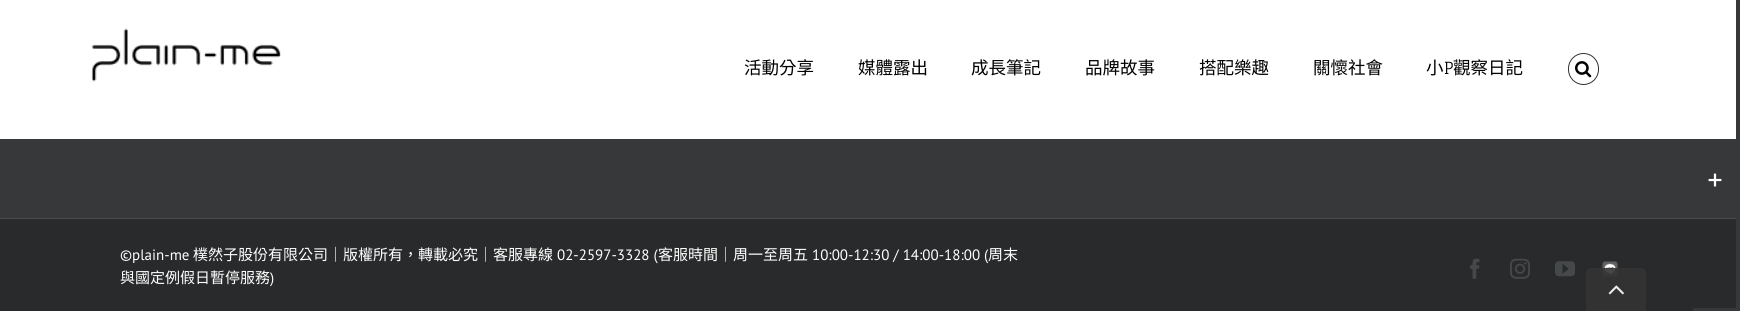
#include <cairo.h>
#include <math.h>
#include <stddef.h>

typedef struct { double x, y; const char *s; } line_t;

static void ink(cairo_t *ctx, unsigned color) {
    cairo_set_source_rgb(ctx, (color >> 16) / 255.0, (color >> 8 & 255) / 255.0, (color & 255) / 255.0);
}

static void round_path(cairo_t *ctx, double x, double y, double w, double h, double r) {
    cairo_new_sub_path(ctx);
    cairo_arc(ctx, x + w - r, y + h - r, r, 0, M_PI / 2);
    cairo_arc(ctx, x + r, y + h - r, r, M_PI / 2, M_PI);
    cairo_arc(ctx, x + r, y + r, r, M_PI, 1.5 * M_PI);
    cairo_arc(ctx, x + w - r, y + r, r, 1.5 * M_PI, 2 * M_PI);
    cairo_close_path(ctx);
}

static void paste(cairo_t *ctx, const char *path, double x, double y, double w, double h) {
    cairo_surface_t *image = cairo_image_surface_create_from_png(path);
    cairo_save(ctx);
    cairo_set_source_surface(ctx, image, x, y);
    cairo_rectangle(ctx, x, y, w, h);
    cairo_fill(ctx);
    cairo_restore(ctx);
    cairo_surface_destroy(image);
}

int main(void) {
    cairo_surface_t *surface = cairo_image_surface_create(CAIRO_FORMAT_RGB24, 1740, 311);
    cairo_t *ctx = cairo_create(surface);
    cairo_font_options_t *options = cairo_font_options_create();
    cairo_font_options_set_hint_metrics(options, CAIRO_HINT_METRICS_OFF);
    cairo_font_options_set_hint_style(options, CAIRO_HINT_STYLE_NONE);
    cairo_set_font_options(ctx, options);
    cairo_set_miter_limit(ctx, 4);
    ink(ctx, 0x363839);
    cairo_paint(ctx);
    ink(ctx, 0xFFFFFF);
    cairo_rectangle(ctx, 0, 0, 1736, 139);
    cairo_fill(ctx);
    paste(ctx, "media/1.png", 91, 28, 190, 54);
    cairo_select_font_face(ctx, "Noto Sans CJK TC", CAIRO_FONT_SLANT_NORMAL, CAIRO_FONT_WEIGHT_NORMAL);
    cairo_set_font_size(ctx, 17.5);
    ink(ctx, 0x000000);
    {
        static const line_t items[] = {
            {744, 74, "活動分享"},
            {858, 74, "媒體露出"},
            {971, 74, "成長筆記"},
            {1085, 74, "品牌故事"},
            {1199, 74, "搭配樂趣"},
            {1313, 74, "關懷社會"},
            {1426, 74, "小"},
        };
        for (size_t i = 0; i < sizeof items / sizeof *items; i++) {
            cairo_move_to(ctx, items[i].x, items[i].y);
            cairo_show_text(ctx, items[i].s);
        }
    }
    cairo_select_font_face(ctx, "Antic Slab", CAIRO_FONT_SLANT_NORMAL, CAIRO_FONT_WEIGHT_NORMAL);
    cairo_move_to(ctx, 1444, 74);
    cairo_show_text(ctx, "P");
    cairo_select_font_face(ctx, "Noto Sans CJK TC", CAIRO_FONT_SLANT_NORMAL, CAIRO_FONT_WEIGHT_NORMAL);
    cairo_move_to(ctx, 1453, 74);
    cairo_show_text(ctx, "觀察日記");
    round_path(ctx, 1568.5, 53.5, 30, 31, 15);
    ink(ctx, 0x333333);
    cairo_set_line_width(ctx, 1);
    cairo_stroke(ctx);
    paste(ctx, "media/2.png", 1575, 61, 17, 17);
    ink(ctx, 0x282A2B);
    cairo_rectangle(ctx, 0, 219, 1736, 92);
    cairo_fill(ctx);
    ink(ctx, 0x4B4C4D);
    cairo_rectangle(ctx, 0, 218, 1740, 1);
    cairo_fill(ctx);
    cairo_select_font_face(ctx, "PT Sans", CAIRO_FONT_SLANT_NORMAL, CAIRO_FONT_WEIGHT_NORMAL);
    cairo_set_font_size(ctx, 15);
    ink(ctx, 0xFFFFFF);
    cairo_move_to(ctx, 120, 260);
    cairo_show_text(ctx, "©plain-me");
    cairo_select_font_face(ctx, "Noto Sans CJK TC", CAIRO_FONT_SLANT_NORMAL, CAIRO_FONT_WEIGHT_NORMAL);
    cairo_move_to(ctx, 193, 260);
    cairo_show_text(ctx, "樸然子股份有限公司｜版權所有，轉載必究｜客服專線");
    cairo_select_font_face(ctx, "PT Sans", CAIRO_FONT_SLANT_NORMAL, CAIRO_FONT_WEIGHT_NORMAL);
    cairo_move_to(ctx, 557, 260);
    cairo_show_text(ctx, "02-2597-3328 (");
    cairo_select_font_face(ctx, "Noto Sans CJK TC", CAIRO_FONT_SLANT_NORMAL, CAIRO_FONT_WEIGHT_NORMAL);
    cairo_move_to(ctx, 658, 260);
    cairo_show_text(ctx, "客服時間｜周一至周五");
    cairo_select_font_face(ctx, "PT Sans", CAIRO_FONT_SLANT_NORMAL, CAIRO_FONT_WEIGHT_NORMAL);
    cairo_move_to(ctx, 812, 260);
    cairo_show_text(ctx, "10:00-12:30 / 14:00-18:00 (");
    cairo_select_font_face(ctx, "Noto Sans CJK TC", CAIRO_FONT_SLANT_NORMAL, CAIRO_FONT_WEIGHT_NORMAL);
    cairo_move_to(ctx, 988, 260);
    cairo_show_text(ctx, "周末");
    cairo_move_to(ctx, 120, 283);
    cairo_show_text(ctx, "與國定例假日暫停服務");
    cairo_select_font_face(ctx, "PT Sans", CAIRO_FONT_SLANT_NORMAL, CAIRO_FONT_WEIGHT_NORMAL);
    cairo_move_to(ctx, 270, 283);
    cairo_show_text(ctx, ")");
    paste(ctx, "media/3.png", 1470, 258, 10, 21);
    paste(ctx, "media/4.png", 1510, 258, 20, 21);
    paste(ctx, "media/5.png", 1555, 261, 20, 16);
    paste(ctx, "media/6.png", 1602, 261, 16, 16);
    ink(ctx, 0x363839);
    cairo_rectangle(ctx, 1693, 308, 47, 3);
    cairo_fill(ctx);
    paste(ctx, "media/7.png", 1708, 173, 14, 14);
    cairo_rectangle(ctx, 1736, 218, 4, 1);
    cairo_fill(ctx);
    cairo_set_source_rgba(ctx, 0.2, 0.2, 0.2, 0.9);
    cairo_new_path(ctx);
    cairo_move_to(ctx, 1591, 268);
    cairo_line_to(ctx, 1641, 268);
    cairo_curve_to(ctx, 1644, 268, 1646, 270, 1646, 273);
    cairo_line_to(ctx, 1646, 311);
    cairo_line_to(ctx, 1586, 311);
    cairo_line_to(ctx, 1586, 273);
    cairo_curve_to(ctx, 1586, 270, 1588, 268, 1591, 268);
    cairo_close_path(ctx);
    cairo_fill(ctx);
    paste(ctx, "media/8.png", 1608, 285, 16, 10);
    cairo_surface_write_to_png(surface, "image.png");
    cairo_font_options_destroy(options);
    cairo_destroy(ctx);
    cairo_surface_destroy(surface);
    return 0;
}
